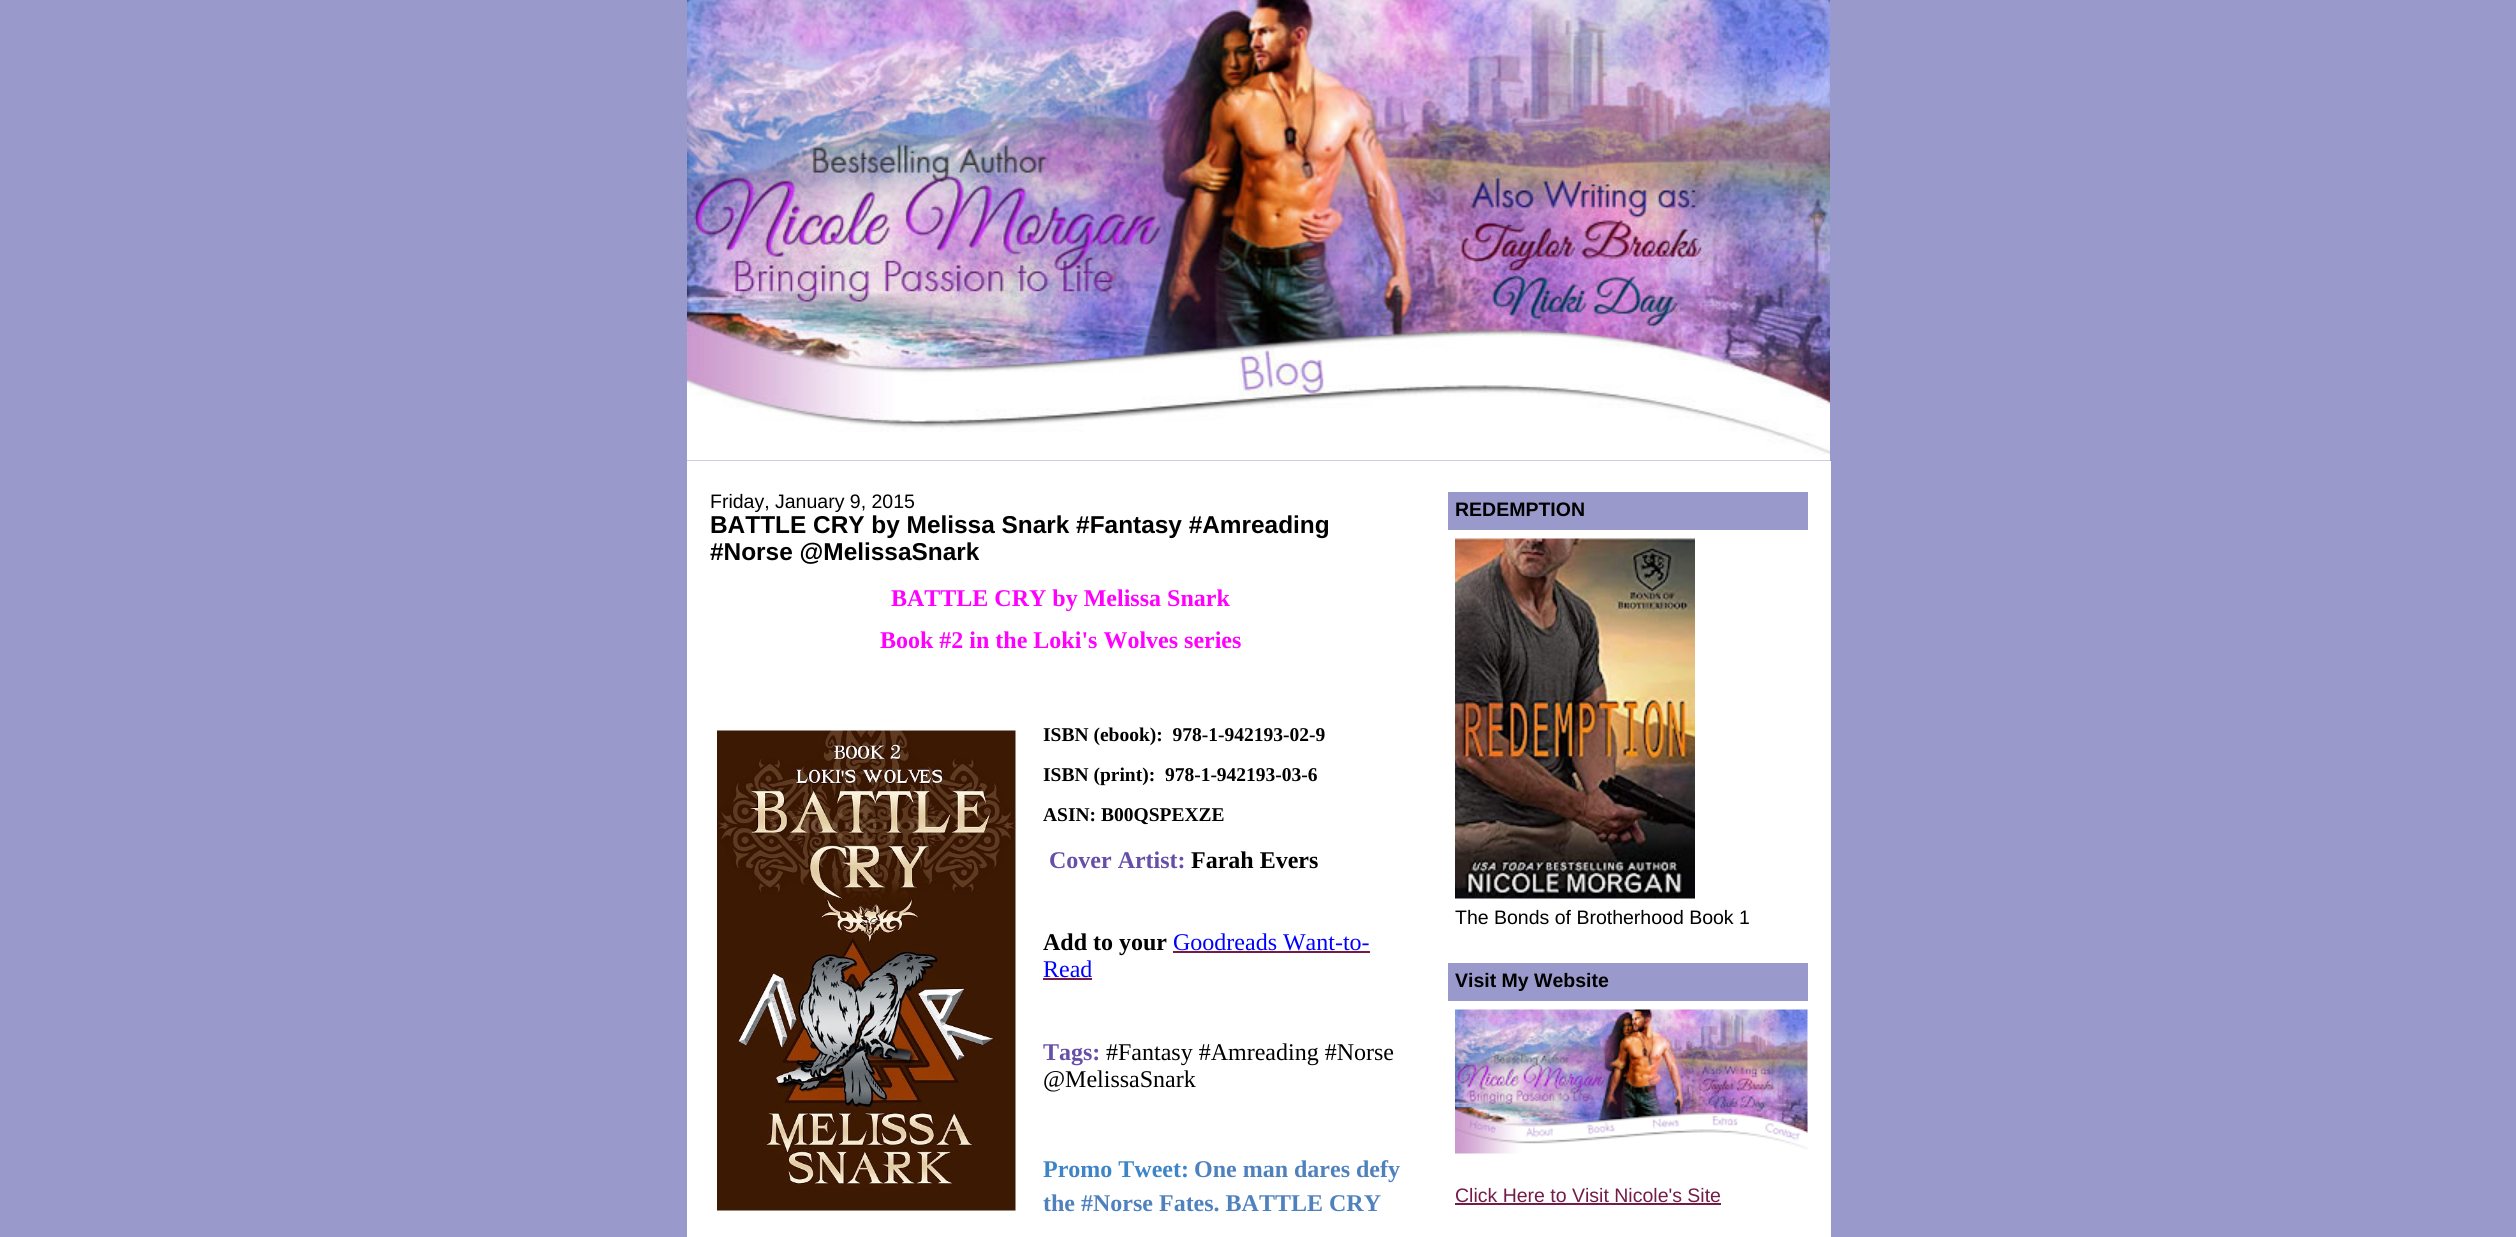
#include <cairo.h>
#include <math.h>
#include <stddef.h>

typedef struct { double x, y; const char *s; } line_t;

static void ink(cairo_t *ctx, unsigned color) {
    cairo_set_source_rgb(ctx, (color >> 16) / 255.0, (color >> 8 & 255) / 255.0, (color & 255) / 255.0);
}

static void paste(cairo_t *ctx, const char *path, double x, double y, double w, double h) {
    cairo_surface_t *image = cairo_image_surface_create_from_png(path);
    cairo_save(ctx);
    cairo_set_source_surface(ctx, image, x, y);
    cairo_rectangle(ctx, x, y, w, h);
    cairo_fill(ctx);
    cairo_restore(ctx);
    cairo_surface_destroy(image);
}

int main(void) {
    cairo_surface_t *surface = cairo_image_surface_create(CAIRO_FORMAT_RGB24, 2516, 1237);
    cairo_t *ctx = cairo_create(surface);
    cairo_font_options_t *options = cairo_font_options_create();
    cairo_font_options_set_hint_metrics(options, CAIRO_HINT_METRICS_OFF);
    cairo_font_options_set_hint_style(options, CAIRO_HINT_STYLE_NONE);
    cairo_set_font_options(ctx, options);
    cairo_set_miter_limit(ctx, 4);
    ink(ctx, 0x9999CC);
    cairo_paint(ctx);
    paste(ctx, "media/1.png", 687, 0, 1143, 461);
    ink(ctx, 0xFFFFFF);
    cairo_rectangle(ctx, 687, 461, 1144, 776);
    cairo_fill(ctx);
    cairo_select_font_face(ctx, "Liberation Sans", CAIRO_FONT_SLANT_NORMAL, CAIRO_FONT_WEIGHT_NORMAL);
    cairo_set_font_size(ctx, 19.5);
    ink(ctx, 0x000000);
    cairo_move_to(ctx, 710, 508);
    cairo_show_text(ctx, "Friday, January 9, 2015");
    cairo_select_font_face(ctx, "Liberation Sans", CAIRO_FONT_SLANT_NORMAL, CAIRO_FONT_WEIGHT_BOLD);
    cairo_set_font_size(ctx, 24.4);
    cairo_move_to(ctx, 710, 533);
    cairo_show_text(ctx, "BATTLE CRY by Melissa Snark #Fantasy #Amreading");
    cairo_move_to(ctx, 710, 560);
    cairo_show_text(ctx, "#Norse @MelissaSnark");
    cairo_select_font_face(ctx, "Liberation Serif", CAIRO_FONT_SLANT_NORMAL, CAIRO_FONT_WEIGHT_BOLD);
    cairo_set_font_size(ctx, 24);
    ink(ctx, 0xFF00FF);
    cairo_move_to(ctx, 891, 606);
    cairo_show_text(ctx, "BATTLE CRY by Melissa Snark");
    cairo_move_to(ctx, 880, 648);
    cairo_show_text(ctx, "Book #2 in the Loki's Wolves series");
    paste(ctx, "media/2.png", 717, 730, 299, 481);
    cairo_set_font_size(ctx, 19.5);
    ink(ctx, 0x000000);
    {
        static const line_t items[] = {
            {1043, 741, "ISBN (ebook):  978-1-942193-02-9"},
            {1043, 781, "ISBN (print):  978-1-942193-03-6"},
            {1043, 821, "ASIN: B00QSPEXZE"},
        };
        for (size_t i = 0; i < sizeof items / sizeof *items; i++) {
            cairo_move_to(ctx, items[i].x, items[i].y);
            cairo_show_text(ctx, items[i].s);
        }
    }
    cairo_set_font_size(ctx, 24);
    ink(ctx, 0x674EA7);
    cairo_move_to(ctx, 1049, 868);
    cairo_show_text(ctx, "Cover Artist:");
    ink(ctx, 0x000000);
    cairo_move_to(ctx, 1191, 868);
    cairo_show_text(ctx, "Farah Evers");
    cairo_move_to(ctx, 1043, 950);
    cairo_show_text(ctx, "Add to your");
    cairo_select_font_face(ctx, "Liberation Serif", CAIRO_FONT_SLANT_NORMAL, CAIRO_FONT_WEIGHT_NORMAL);
    ink(ctx, 0x0000FF);
    cairo_move_to(ctx, 1173, 950);
    cairo_show_text(ctx, "Goodreads Want-to-");
    ink(ctx, 0x741B47);
    cairo_rectangle(ctx, 1173, 951, 197, 2);
    cairo_fill(ctx);
    ink(ctx, 0x0000FF);
    cairo_move_to(ctx, 1043, 977);
    cairo_show_text(ctx, "Read");
    ink(ctx, 0x741B47);
    cairo_rectangle(ctx, 1043, 978, 49, 2);
    cairo_fill(ctx);
    cairo_select_font_face(ctx, "Liberation Serif", CAIRO_FONT_SLANT_NORMAL, CAIRO_FONT_WEIGHT_BOLD);
    ink(ctx, 0x674EA7);
    cairo_move_to(ctx, 1043, 1060);
    cairo_show_text(ctx, "Tags:");
    cairo_select_font_face(ctx, "Liberation Serif", CAIRO_FONT_SLANT_NORMAL, CAIRO_FONT_WEIGHT_NORMAL);
    ink(ctx, 0x000000);
    cairo_move_to(ctx, 1106, 1060);
    cairo_show_text(ctx, "#Fantasy #Amreading #Norse");
    cairo_move_to(ctx, 1043, 1087);
    cairo_show_text(ctx, "@MelissaSnark");
    cairo_select_font_face(ctx, "Liberation Serif", CAIRO_FONT_SLANT_NORMAL, CAIRO_FONT_WEIGHT_BOLD);
    ink(ctx, 0x3D85C6);
    cairo_move_to(ctx, 1043, 1177);
    cairo_show_text(ctx, "Promo Tweet:");
    ink(ctx, 0x4F81BD);
    cairo_move_to(ctx, 1194, 1177);
    cairo_show_text(ctx, "One man dares defy");
    cairo_move_to(ctx, 1043, 1211);
    cairo_show_text(ctx, "the #Norse Fates. BATTLE CRY");
    ink(ctx, 0x9999CC);
    cairo_rectangle(ctx, 1448, 492, 360, 38);
    cairo_fill(ctx);
    cairo_select_font_face(ctx, "Liberation Sans", CAIRO_FONT_SLANT_NORMAL, CAIRO_FONT_WEIGHT_BOLD);
    cairo_set_font_size(ctx, 19.5);
    ink(ctx, 0x000000);
    cairo_move_to(ctx, 1455, 516);
    cairo_show_text(ctx, "REDEMPTION");
    paste(ctx, "media/3.png", 1455, 538, 240, 361);
    cairo_select_font_face(ctx, "Liberation Sans", CAIRO_FONT_SLANT_NORMAL, CAIRO_FONT_WEIGHT_NORMAL);
    cairo_move_to(ctx, 1455, 924);
    cairo_show_text(ctx, "The Bonds of Brotherhood Book 1");
    ink(ctx, 0x9999CC);
    cairo_rectangle(ctx, 1448, 963, 360, 38);
    cairo_fill(ctx);
    cairo_select_font_face(ctx, "Liberation Sans", CAIRO_FONT_SLANT_NORMAL, CAIRO_FONT_WEIGHT_BOLD);
    ink(ctx, 0x000000);
    cairo_move_to(ctx, 1455, 987);
    cairo_show_text(ctx, "Visit My Website");
    paste(ctx, "media/4.png", 1455, 1009, 353, 145);
    cairo_select_font_face(ctx, "Liberation Sans", CAIRO_FONT_SLANT_NORMAL, CAIRO_FONT_WEIGHT_NORMAL);
    ink(ctx, 0x741B47);
    cairo_move_to(ctx, 1455, 1202);
    cairo_show_text(ctx, "Click Here to Visit Nicole's Site");
    cairo_rectangle(ctx, 1455, 1203, 266, 2);
    cairo_fill(ctx);
    cairo_surface_write_to_png(surface, "image.png");
    cairo_font_options_destroy(options);
    cairo_destroy(ctx);
    cairo_surface_destroy(surface);
    return 0;
}
